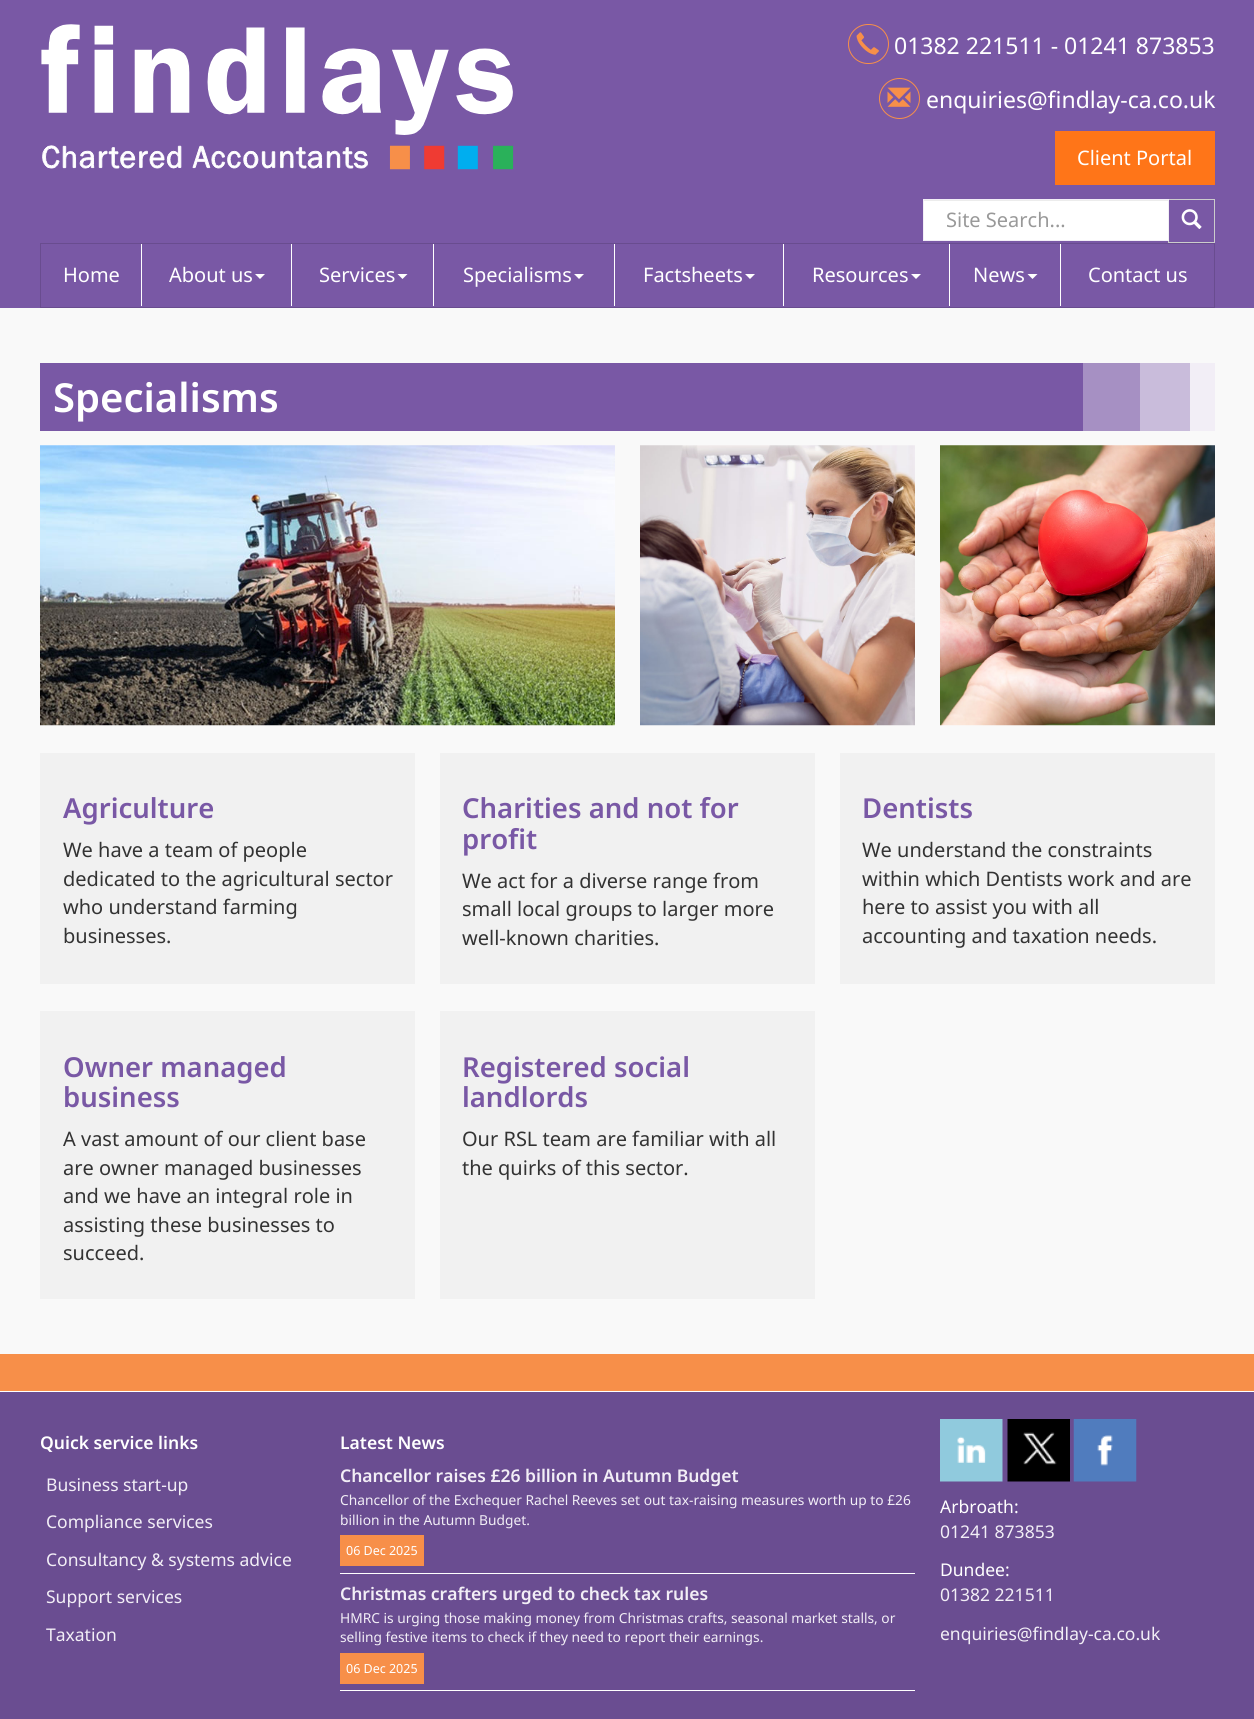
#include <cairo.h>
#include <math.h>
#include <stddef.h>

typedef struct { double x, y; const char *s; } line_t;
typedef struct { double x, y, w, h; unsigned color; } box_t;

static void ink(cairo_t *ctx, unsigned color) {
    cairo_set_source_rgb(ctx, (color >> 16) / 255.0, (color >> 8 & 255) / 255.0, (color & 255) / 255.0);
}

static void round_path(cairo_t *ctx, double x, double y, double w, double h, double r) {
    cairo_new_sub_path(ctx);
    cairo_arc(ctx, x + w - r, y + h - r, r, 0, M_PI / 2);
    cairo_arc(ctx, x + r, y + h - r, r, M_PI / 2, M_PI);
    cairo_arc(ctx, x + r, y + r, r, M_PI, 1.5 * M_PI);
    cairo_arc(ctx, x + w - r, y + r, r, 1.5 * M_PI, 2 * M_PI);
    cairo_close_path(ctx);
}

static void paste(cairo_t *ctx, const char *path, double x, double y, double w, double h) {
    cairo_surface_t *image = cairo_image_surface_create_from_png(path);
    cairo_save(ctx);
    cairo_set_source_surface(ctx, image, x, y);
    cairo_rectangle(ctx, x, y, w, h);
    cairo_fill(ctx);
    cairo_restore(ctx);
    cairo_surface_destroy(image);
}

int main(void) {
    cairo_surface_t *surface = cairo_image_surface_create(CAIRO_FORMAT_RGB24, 1254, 1719);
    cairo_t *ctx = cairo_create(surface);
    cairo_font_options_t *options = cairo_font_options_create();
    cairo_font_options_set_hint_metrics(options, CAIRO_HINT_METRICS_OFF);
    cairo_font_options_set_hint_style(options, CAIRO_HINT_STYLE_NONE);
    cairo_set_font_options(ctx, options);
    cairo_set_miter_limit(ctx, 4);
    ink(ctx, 0x7958A5);
    cairo_paint(ctx);
    paste(ctx, "media/1.png", 41, 24, 473, 146);
    round_path(ctx, 848.5, 24.5, 40, 39, 19.5);
    ink(ctx, 0xF78F49);
    cairo_set_line_width(ctx, 1);
    cairo_stroke(ctx);
    paste(ctx, "media/2.png", 856, 32, 23, 23);
    cairo_select_font_face(ctx, "Noto Sans", CAIRO_FONT_SLANT_NORMAL, CAIRO_FONT_WEIGHT_NORMAL);
    cairo_set_font_size(ctx, 23);
    ink(ctx, 0xFFFFFF);
    cairo_move_to(ctx, 894, 54);
    cairo_show_text(ctx, "01382 221511 - 01241 873853");
    cairo_new_path(ctx);
    cairo_arc(ctx, 899.5, 98.5, 20, 0, 2 * M_PI);
    ink(ctx, 0xF78F49);
    cairo_stroke(ctx);
    paste(ctx, "media/3.png", 887, 87, 24, 20);
    ink(ctx, 0xFFFFFF);
    cairo_move_to(ctx, 926, 108);
    cairo_show_text(ctx, "enquiries@findlay-ca.co.uk");
    ink(ctx, 0xFF7518);
    cairo_rectangle(ctx, 1055, 131, 160, 54);
    cairo_fill(ctx);
    cairo_set_font_size(ctx, 20);
    ink(ctx, 0xFFFFFF);
    cairo_move_to(ctx, 1077, 165);
    cairo_show_text(ctx, "Client Portal");
    cairo_rectangle(ctx, 924, 201, 244, 39);
    cairo_fill(ctx);
    ink(ctx, 0xECECEC);
    cairo_rectangle(ctx, 924, 200, 244, 1);
    cairo_fill(ctx);
    cairo_rectangle(ctx, 1168.5, 199.5, 46, 43);
    ink(ctx, 0xCCCCCC);
    cairo_stroke(ctx);
    cairo_rectangle(ctx, 923.5, 199.5, 245, 41);
    ink(ctx, 0xF2EEF6);
    cairo_stroke(ctx);
    ink(ctx, 0x999999);
    cairo_move_to(ctx, 946, 227);
    cairo_show_text(ctx, "Site Search...");
    paste(ctx, "media/4.png", 1181, 209, 21, 20);
    cairo_rectangle(ctx, 40.5, 243.5, 1174, 64);
    ink(ctx, 0x694C8F);
    cairo_stroke(ctx);
    ink(ctx, 0xFFFFFF);
    cairo_move_to(ctx, 63, 282);
    cairo_show_text(ctx, "Home");
    cairo_rectangle(ctx, 141, 244, 1, 62);
    cairo_fill(ctx);
    cairo_move_to(ctx, 169, 282);
    cairo_show_text(ctx, "About us");
    cairo_new_path(ctx);
    cairo_move_to(ctx, 255, 274);
    cairo_line_to(ctx, 265, 274);
    cairo_line_to(ctx, 260, 279);
    cairo_close_path(ctx);
    cairo_fill(ctx);
    cairo_rectangle(ctx, 291, 244, 1, 62);
    cairo_fill(ctx);
    cairo_move_to(ctx, 319, 282);
    cairo_show_text(ctx, "Services");
    cairo_new_path(ctx);
    cairo_move_to(ctx, 397.5, 274);
    cairo_line_to(ctx, 407.5, 274);
    cairo_line_to(ctx, 402.5, 279);
    cairo_close_path(ctx);
    cairo_fill(ctx);
    cairo_rectangle(ctx, 433, 244, 1, 62);
    cairo_fill(ctx);
    cairo_move_to(ctx, 463, 282);
    cairo_show_text(ctx, "Specialisms");
    cairo_new_path(ctx);
    cairo_move_to(ctx, 574, 274);
    cairo_line_to(ctx, 584, 274);
    cairo_line_to(ctx, 579, 279);
    cairo_close_path(ctx);
    cairo_fill(ctx);
    cairo_rectangle(ctx, 614, 244, 1, 62);
    cairo_fill(ctx);
    cairo_move_to(ctx, 643, 282);
    cairo_show_text(ctx, "Factsheets");
    cairo_new_path(ctx);
    cairo_move_to(ctx, 745, 274);
    cairo_line_to(ctx, 755, 274);
    cairo_line_to(ctx, 750, 279);
    cairo_close_path(ctx);
    cairo_fill(ctx);
    cairo_rectangle(ctx, 783, 244, 1, 62);
    cairo_fill(ctx);
    cairo_move_to(ctx, 812, 282);
    cairo_show_text(ctx, "Resources");
    cairo_new_path(ctx);
    cairo_move_to(ctx, 911, 274);
    cairo_line_to(ctx, 921, 274);
    cairo_line_to(ctx, 916, 279);
    cairo_close_path(ctx);
    cairo_fill(ctx);
    cairo_rectangle(ctx, 949, 244, 1, 62);
    cairo_fill(ctx);
    cairo_move_to(ctx, 973, 282);
    cairo_show_text(ctx, "News");
    cairo_new_path(ctx);
    cairo_move_to(ctx, 1027.5, 274);
    cairo_line_to(ctx, 1037.5, 274);
    cairo_line_to(ctx, 1032.5, 279);
    cairo_close_path(ctx);
    cairo_fill(ctx);
    cairo_rectangle(ctx, 1060, 244, 1, 62);
    cairo_fill(ctx);
    cairo_move_to(ctx, 1088, 282);
    cairo_show_text(ctx, "Contact us");
    {
        static const box_t items[] = {
            {0, 308, 1254, 1046, 0xF9F9F9},
            {40, 363, 1043, 68, 0x7958A5},
            {1190, 363, 25, 68, 0xF2EEF6},
        };
        for (size_t i = 0; i < sizeof items / sizeof *items; i++) {
            ink(ctx, items[i].color);
            cairo_rectangle(ctx, items[i].x, items[i].y, items[i].w, items[i].h);
            cairo_fill(ctx);
        }
    }
    cairo_select_font_face(ctx, "Noto Sans SemiBold", CAIRO_FONT_SLANT_NORMAL, CAIRO_FONT_WEIGHT_NORMAL);
    cairo_set_font_size(ctx, 40);
    ink(ctx, 0xFFFFFF);
    cairo_move_to(ctx, 53, 412);
    cairo_show_text(ctx, "Specialisms");
    ink(ctx, 0xA690C3);
    cairo_rectangle(ctx, 1083, 363, 57, 68);
    cairo_fill(ctx);
    ink(ctx, 0xC9BCDB);
    cairo_rectangle(ctx, 1140, 363, 50, 68);
    cairo_fill(ctx);
    paste(ctx, "media/5.png", 40, 445, 575, 281);
    paste(ctx, "media/6.png", 640, 445, 275, 281);
    paste(ctx, "media/7.png", 940, 445, 275, 281);
    ink(ctx, 0xF1F1F1);
    cairo_rectangle(ctx, 40, 753, 375, 231);
    cairo_fill(ctx);
    cairo_set_font_size(ctx, 27.5);
    ink(ctx, 0x7958A5);
    cairo_move_to(ctx, 63, 818);
    cairo_show_text(ctx, "Agriculture");
    cairo_select_font_face(ctx, "Noto Sans", CAIRO_FONT_SLANT_NORMAL, CAIRO_FONT_WEIGHT_NORMAL);
    cairo_set_font_size(ctx, 20);
    ink(ctx, 0x333333);
    {
        static const line_t items[] = {
            {63, 857, "We have a team of people"},
            {63, 886, "dedicated to the agricultural sector"},
            {63, 914, "who understand farming"},
            {63, 943, "businesses."},
        };
        for (size_t i = 0; i < sizeof items / sizeof *items; i++) {
            cairo_move_to(ctx, items[i].x, items[i].y);
            cairo_show_text(ctx, items[i].s);
        }
    }
    ink(ctx, 0xF1F1F1);
    cairo_rectangle(ctx, 440, 753, 375, 231);
    cairo_fill(ctx);
    cairo_select_font_face(ctx, "Noto Sans SemiBold", CAIRO_FONT_SLANT_NORMAL, CAIRO_FONT_WEIGHT_NORMAL);
    cairo_set_font_size(ctx, 27.5);
    ink(ctx, 0x7958A5);
    cairo_move_to(ctx, 462, 818);
    cairo_show_text(ctx, "Charities and not for");
    cairo_move_to(ctx, 462, 849);
    cairo_show_text(ctx, "profit");
    cairo_select_font_face(ctx, "Noto Sans", CAIRO_FONT_SLANT_NORMAL, CAIRO_FONT_WEIGHT_NORMAL);
    cairo_set_font_size(ctx, 20);
    ink(ctx, 0x333333);
    {
        static const line_t items[] = {
            {462, 888, "We act for a diverse range from"},
            {462, 916, "small local groups to larger more"},
            {462, 945, "well-known charities."},
        };
        for (size_t i = 0; i < sizeof items / sizeof *items; i++) {
            cairo_move_to(ctx, items[i].x, items[i].y);
            cairo_show_text(ctx, items[i].s);
        }
    }
    ink(ctx, 0xF1F1F1);
    cairo_rectangle(ctx, 840, 753, 375, 231);
    cairo_fill(ctx);
    cairo_select_font_face(ctx, "Noto Sans SemiBold", CAIRO_FONT_SLANT_NORMAL, CAIRO_FONT_WEIGHT_NORMAL);
    cairo_set_font_size(ctx, 27.5);
    ink(ctx, 0x7958A5);
    cairo_move_to(ctx, 862, 818);
    cairo_show_text(ctx, "Dentists");
    cairo_select_font_face(ctx, "Noto Sans", CAIRO_FONT_SLANT_NORMAL, CAIRO_FONT_WEIGHT_NORMAL);
    cairo_set_font_size(ctx, 20);
    ink(ctx, 0x333333);
    {
        static const line_t items[] = {
            {862, 857, "We understand the constraints"},
            {862, 886, "within which Dentists work and are"},
            {862, 914, "here to assist you with all"},
            {862, 943, "accounting and taxation needs."},
        };
        for (size_t i = 0; i < sizeof items / sizeof *items; i++) {
            cairo_move_to(ctx, items[i].x, items[i].y);
            cairo_show_text(ctx, items[i].s);
        }
    }
    ink(ctx, 0xF1F1F1);
    cairo_rectangle(ctx, 40, 1011, 375, 288);
    cairo_fill(ctx);
    cairo_select_font_face(ctx, "Noto Sans SemiBold", CAIRO_FONT_SLANT_NORMAL, CAIRO_FONT_WEIGHT_NORMAL);
    cairo_set_font_size(ctx, 27.5);
    ink(ctx, 0x7958A5);
    cairo_move_to(ctx, 63, 1077);
    cairo_show_text(ctx, "Owner managed");
    cairo_move_to(ctx, 63, 1107);
    cairo_show_text(ctx, "business");
    cairo_select_font_face(ctx, "Noto Sans", CAIRO_FONT_SLANT_NORMAL, CAIRO_FONT_WEIGHT_NORMAL);
    cairo_set_font_size(ctx, 20);
    ink(ctx, 0x333333);
    {
        static const line_t items[] = {
            {63, 1146, "A vast amount of our client base"},
            {63, 1175, "are owner managed businesses"},
            {63, 1203, "and we have an integral role in"},
            {63, 1232, "assisting these businesses to"},
            {63, 1260, "succeed."},
        };
        for (size_t i = 0; i < sizeof items / sizeof *items; i++) {
            cairo_move_to(ctx, items[i].x, items[i].y);
            cairo_show_text(ctx, items[i].s);
        }
    }
    ink(ctx, 0xF1F1F1);
    cairo_rectangle(ctx, 440, 1011, 375, 288);
    cairo_fill(ctx);
    cairo_select_font_face(ctx, "Noto Sans SemiBold", CAIRO_FONT_SLANT_NORMAL, CAIRO_FONT_WEIGHT_NORMAL);
    cairo_set_font_size(ctx, 27.5);
    ink(ctx, 0x7958A5);
    cairo_move_to(ctx, 462, 1077);
    cairo_show_text(ctx, "Registered social");
    cairo_move_to(ctx, 462, 1107);
    cairo_show_text(ctx, "landlords");
    cairo_select_font_face(ctx, "Noto Sans", CAIRO_FONT_SLANT_NORMAL, CAIRO_FONT_WEIGHT_NORMAL);
    cairo_set_font_size(ctx, 20);
    ink(ctx, 0x333333);
    cairo_move_to(ctx, 462, 1146);
    cairo_show_text(ctx, "Our RSL team are familiar with all");
    cairo_move_to(ctx, 462, 1175);
    cairo_show_text(ctx, "the quirks of this sector.");
    {
        static const box_t items[] = {
            {0, 1392, 1254, 327, 0x6A4D91},
            {0, 1391, 1254, 1, 0xFFFFFF},
            {0, 1354, 1254, 37, 0xF78F49},
        };
        for (size_t i = 0; i < sizeof items / sizeof *items; i++) {
            ink(ctx, items[i].color);
            cairo_rectangle(ctx, items[i].x, items[i].y, items[i].w, items[i].h);
            cairo_fill(ctx);
        }
    }
    cairo_select_font_face(ctx, "Noto Sans SemiBold", CAIRO_FONT_SLANT_NORMAL, CAIRO_FONT_WEIGHT_NORMAL);
    cairo_set_font_size(ctx, 17.5);
    ink(ctx, 0xFFFFFF);
    cairo_move_to(ctx, 40, 1449);
    cairo_show_text(ctx, "Quick service links");
    cairo_select_font_face(ctx, "Noto Sans", CAIRO_FONT_SLANT_NORMAL, CAIRO_FONT_WEIGHT_NORMAL);
    ink(ctx, 0xF2EEF6);
    {
        static const line_t items[] = {
            {46, 1491, "Business start-up"},
            {46, 1528, "Compliance services"},
            {46, 1566, "Consultancy & systems advice"},
            {46, 1603, "Support services"},
            {46, 1641, "Taxation"},
        };
        for (size_t i = 0; i < sizeof items / sizeof *items; i++) {
            cairo_move_to(ctx, items[i].x, items[i].y);
            cairo_show_text(ctx, items[i].s);
        }
    }
    cairo_select_font_face(ctx, "Noto Sans SemiBold", CAIRO_FONT_SLANT_NORMAL, CAIRO_FONT_WEIGHT_NORMAL);
    ink(ctx, 0xFFFFFF);
    cairo_move_to(ctx, 340, 1449);
    cairo_show_text(ctx, "Latest News");
    cairo_rectangle(ctx, 340, 1573, 575, 1);
    cairo_fill(ctx);
    ink(ctx, 0xF2EEF6);
    cairo_move_to(ctx, 340, 1482);
    cairo_show_text(ctx, "Chancellor raises £26 billion in Autumn Budget");
    cairo_select_font_face(ctx, "Noto Sans", CAIRO_FONT_SLANT_NORMAL, CAIRO_FONT_WEIGHT_NORMAL);
    cairo_set_font_size(ctx, 13.75);
    cairo_move_to(ctx, 340, 1505);
    cairo_show_text(ctx, "Chancellor of the Exchequer Rachel Reeves set out tax-raising measures worth up to £26");
    cairo_move_to(ctx, 340, 1525);
    cairo_show_text(ctx, "billion in the Autumn Budget.");
    ink(ctx, 0xF78F49);
    cairo_rectangle(ctx, 340, 1535, 84, 31);
    cairo_fill(ctx);
    cairo_set_font_size(ctx, 12.5);
    ink(ctx, 0xFFFFFF);
    cairo_move_to(ctx, 346, 1555);
    cairo_show_text(ctx, "06 Dec 2025");
    cairo_rectangle(ctx, 340, 1690, 575, 1);
    cairo_fill(ctx);
    cairo_select_font_face(ctx, "Noto Sans SemiBold", CAIRO_FONT_SLANT_NORMAL, CAIRO_FONT_WEIGHT_NORMAL);
    cairo_set_font_size(ctx, 17.5);
    ink(ctx, 0xF2EEF6);
    cairo_move_to(ctx, 340, 1600);
    cairo_show_text(ctx, "Christmas crafters urged to check tax rules");
    cairo_select_font_face(ctx, "Noto Sans", CAIRO_FONT_SLANT_NORMAL, CAIRO_FONT_WEIGHT_NORMAL);
    cairo_set_font_size(ctx, 13.75);
    cairo_move_to(ctx, 340, 1623);
    cairo_show_text(ctx, "HMRC is urging those making money from Christmas crafts, seasonal market stalls, or");
    cairo_move_to(ctx, 340, 1642);
    cairo_show_text(ctx, "selling festive items to check if they need to report their earnings.");
    ink(ctx, 0xF78F49);
    cairo_rectangle(ctx, 340, 1653, 84, 31);
    cairo_fill(ctx);
    cairo_set_font_size(ctx, 12.5);
    ink(ctx, 0xFFFFFF);
    cairo_move_to(ctx, 346, 1673);
    cairo_show_text(ctx, "06 Dec 2025");
    paste(ctx, "media/8.png", 940, 1419, 63, 63);
    paste(ctx, "media/9.png", 1007, 1419, 63, 63);
    paste(ctx, "media/10.png", 1073, 1419, 64, 63);
    cairo_set_font_size(ctx, 17.5);
    cairo_move_to(ctx, 940, 1513);
    cairo_show_text(ctx, "Arbroath:");
    ink(ctx, 0xF2EEF6);
    cairo_move_to(ctx, 940, 1538);
    cairo_show_text(ctx, "01241 873853");
    ink(ctx, 0xFFFFFF);
    cairo_move_to(ctx, 940, 1576);
    cairo_show_text(ctx, "Dundee:");
    ink(ctx, 0xF2EEF6);
    cairo_move_to(ctx, 940, 1601);
    cairo_show_text(ctx, "01382 221511");
    cairo_move_to(ctx, 940, 1640);
    cairo_show_text(ctx, "enquiries@findlay-ca.co.uk");
    cairo_surface_write_to_png(surface, "image.png");
    cairo_font_options_destroy(options);
    cairo_destroy(ctx);
    cairo_surface_destroy(surface);
    return 0;
}
